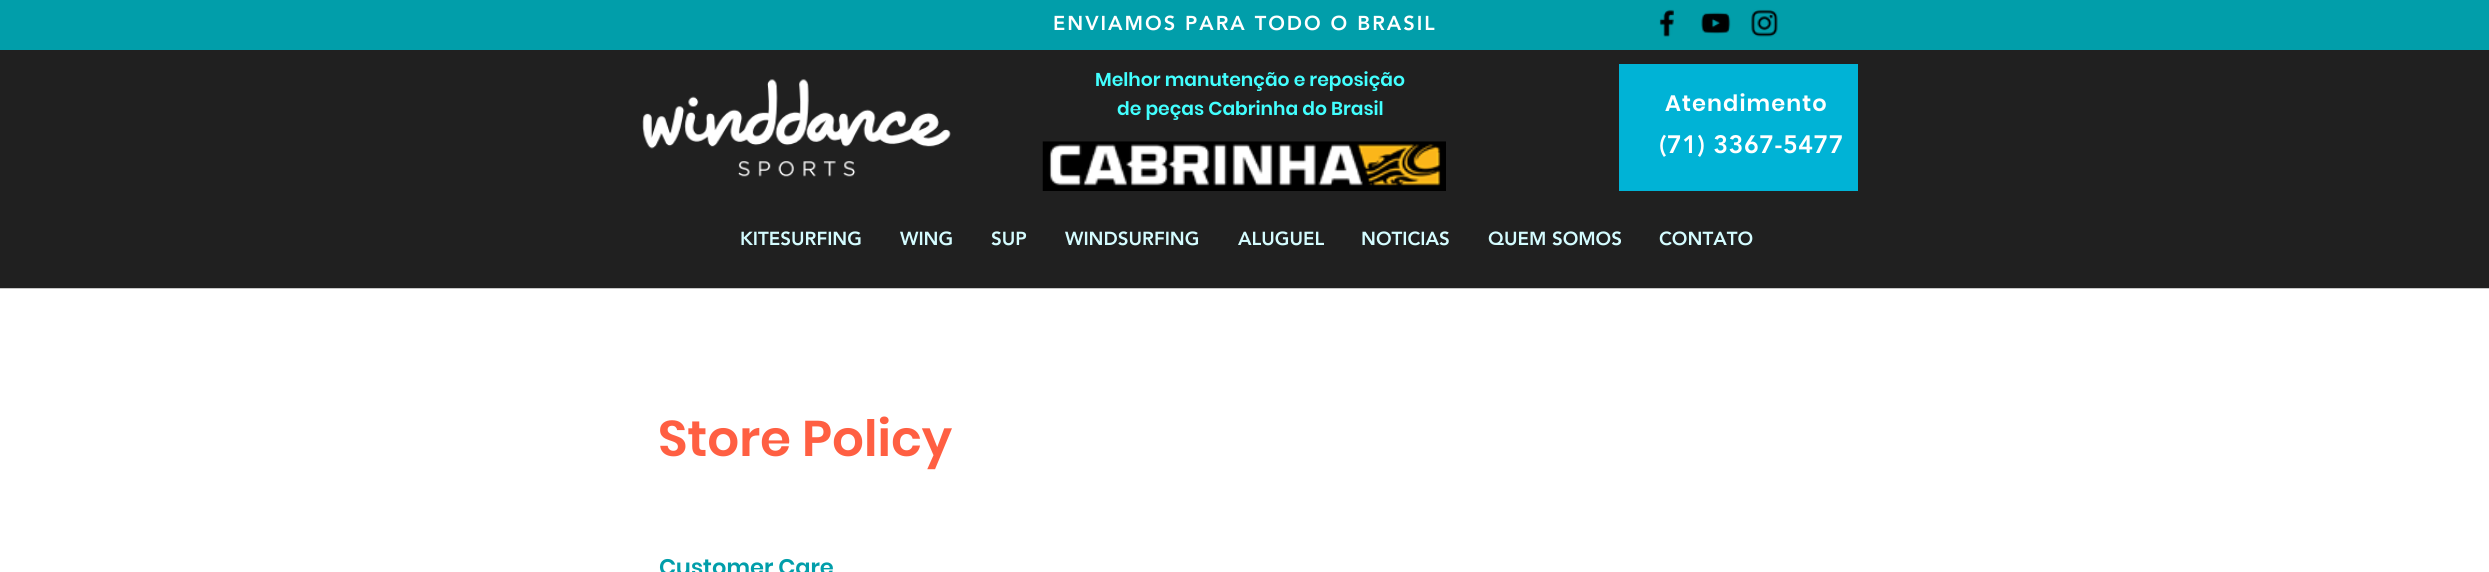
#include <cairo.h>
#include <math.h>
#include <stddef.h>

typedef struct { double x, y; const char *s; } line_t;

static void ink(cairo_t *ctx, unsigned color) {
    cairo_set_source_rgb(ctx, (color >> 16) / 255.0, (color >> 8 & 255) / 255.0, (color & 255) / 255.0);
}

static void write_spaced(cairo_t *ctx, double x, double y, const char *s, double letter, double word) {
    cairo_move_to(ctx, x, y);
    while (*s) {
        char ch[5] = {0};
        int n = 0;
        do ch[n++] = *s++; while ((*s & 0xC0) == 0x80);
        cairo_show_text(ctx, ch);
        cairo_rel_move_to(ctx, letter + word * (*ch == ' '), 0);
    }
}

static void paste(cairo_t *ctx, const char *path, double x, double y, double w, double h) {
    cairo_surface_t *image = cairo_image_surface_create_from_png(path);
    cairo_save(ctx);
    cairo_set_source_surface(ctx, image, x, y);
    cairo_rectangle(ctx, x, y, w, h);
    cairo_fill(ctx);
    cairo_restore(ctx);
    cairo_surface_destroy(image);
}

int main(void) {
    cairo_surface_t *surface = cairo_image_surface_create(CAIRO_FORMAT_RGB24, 2489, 572);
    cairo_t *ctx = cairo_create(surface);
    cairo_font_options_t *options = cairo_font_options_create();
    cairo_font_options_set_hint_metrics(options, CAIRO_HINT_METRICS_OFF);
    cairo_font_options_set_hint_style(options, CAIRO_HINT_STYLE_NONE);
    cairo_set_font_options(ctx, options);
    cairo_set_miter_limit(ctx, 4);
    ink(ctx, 0xFFFFFF);
    cairo_paint(ctx);
    ink(ctx, 0x019EAA);
    cairo_rectangle(ctx, 0, 0, 2489, 50);
    cairo_fill(ctx);
    cairo_select_font_face(ctx, "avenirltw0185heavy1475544 Black", CAIRO_FONT_SLANT_NORMAL, CAIRO_FONT_WEIGHT_NORMAL);
    cairo_set_font_size(ctx, 20);
    ink(ctx, 0xFFFFFF);
    write_spaced(ctx, 1053, 30, "ENVIAMOS PARA TODO O BRASIL", 2, 0);
    paste(ctx, "media/1.png", 1659, 9, 15, 28);
    paste(ctx, "media/2.png", 1701, 12, 30, 22);
    paste(ctx, "media/3.png", 1751, 9, 27, 28);
    ink(ctx, 0x202020);
    cairo_rectangle(ctx, 0, 50, 2489, 238);
    cairo_fill(ctx);
    paste(ctx, "media/4.png", 642, 79, 309, 98);
    cairo_select_font_face(ctx, "Poppins SemiBold", CAIRO_FONT_SLANT_NORMAL, CAIRO_FONT_WEIGHT_NORMAL);
    cairo_set_font_size(ctx, 18.75);
    ink(ctx, 0x42FFFF);
    cairo_move_to(ctx, 1095, 86);
    cairo_show_text(ctx, "Melhor manutenção e reposição");
    cairo_move_to(ctx, 1117, 115);
    cairo_show_text(ctx, "de peças Cabrinha do Brasil");
    paste(ctx, "media/5.png", 1042, 141, 404, 50);
    ink(ctx, 0xC7C7C7);
    cairo_rectangle(ctx, 0, 288, 2489, 1);
    cairo_fill(ctx);
    ink(ctx, 0x00B3D6);
    cairo_rectangle(ctx, 1619, 64, 239, 127);
    cairo_fill(ctx);
    cairo_set_font_size(ctx, 22.5);
    ink(ctx, 0xFFFFFF);
    write_spaced(ctx, 1665, 111, "Atendimento", 1.1, 0);
    cairo_select_font_face(ctx, "avenirltw0185heavy1475544 Black", CAIRO_FONT_SLANT_NORMAL, CAIRO_FONT_WEIGHT_NORMAL);
    cairo_set_font_size(ctx, 25);
    write_spaced(ctx, 1659, 153, "(71) 3367-5477", 0.5, 0);
    cairo_set_font_size(ctx, 18.75);
    ink(ctx, 0xD4FCFF);
    {
        static const line_t items[] = {
            {740, 245, "KITESURFING"},
            {900, 245, "WING"},
            {991, 245, "SUP"},
            {1065, 245, "WINDSURFING"},
            {1238, 245, "ALUGUEL"},
            {1361, 245, "NOTICIAS"},
            {1488, 245, "QUEM SOMOS"},
            {1659, 245, "CONTATO"},
        };
        for (size_t i = 0; i < sizeof items / sizeof *items; i++) {
            cairo_move_to(ctx, items[i].x, items[i].y);
            cairo_show_text(ctx, items[i].s);
        }
    }
    cairo_select_font_face(ctx, "Poppins SemiBold", CAIRO_FONT_SLANT_NORMAL, CAIRO_FONT_WEIGHT_NORMAL);
    cairo_set_font_size(ctx, 50);
    ink(ctx, 0xFF5F42);
    cairo_move_to(ctx, 658, 456);
    cairo_show_text(ctx, "Store Policy");
    cairo_set_font_size(ctx, 22.5);
    ink(ctx, 0x019EAA);
    cairo_move_to(ctx, 659, 575);
    cairo_show_text(ctx, "Customer Care");
    cairo_surface_write_to_png(surface, "image.png");
    cairo_font_options_destroy(options);
    cairo_destroy(ctx);
    cairo_surface_destroy(surface);
    return 0;
}
